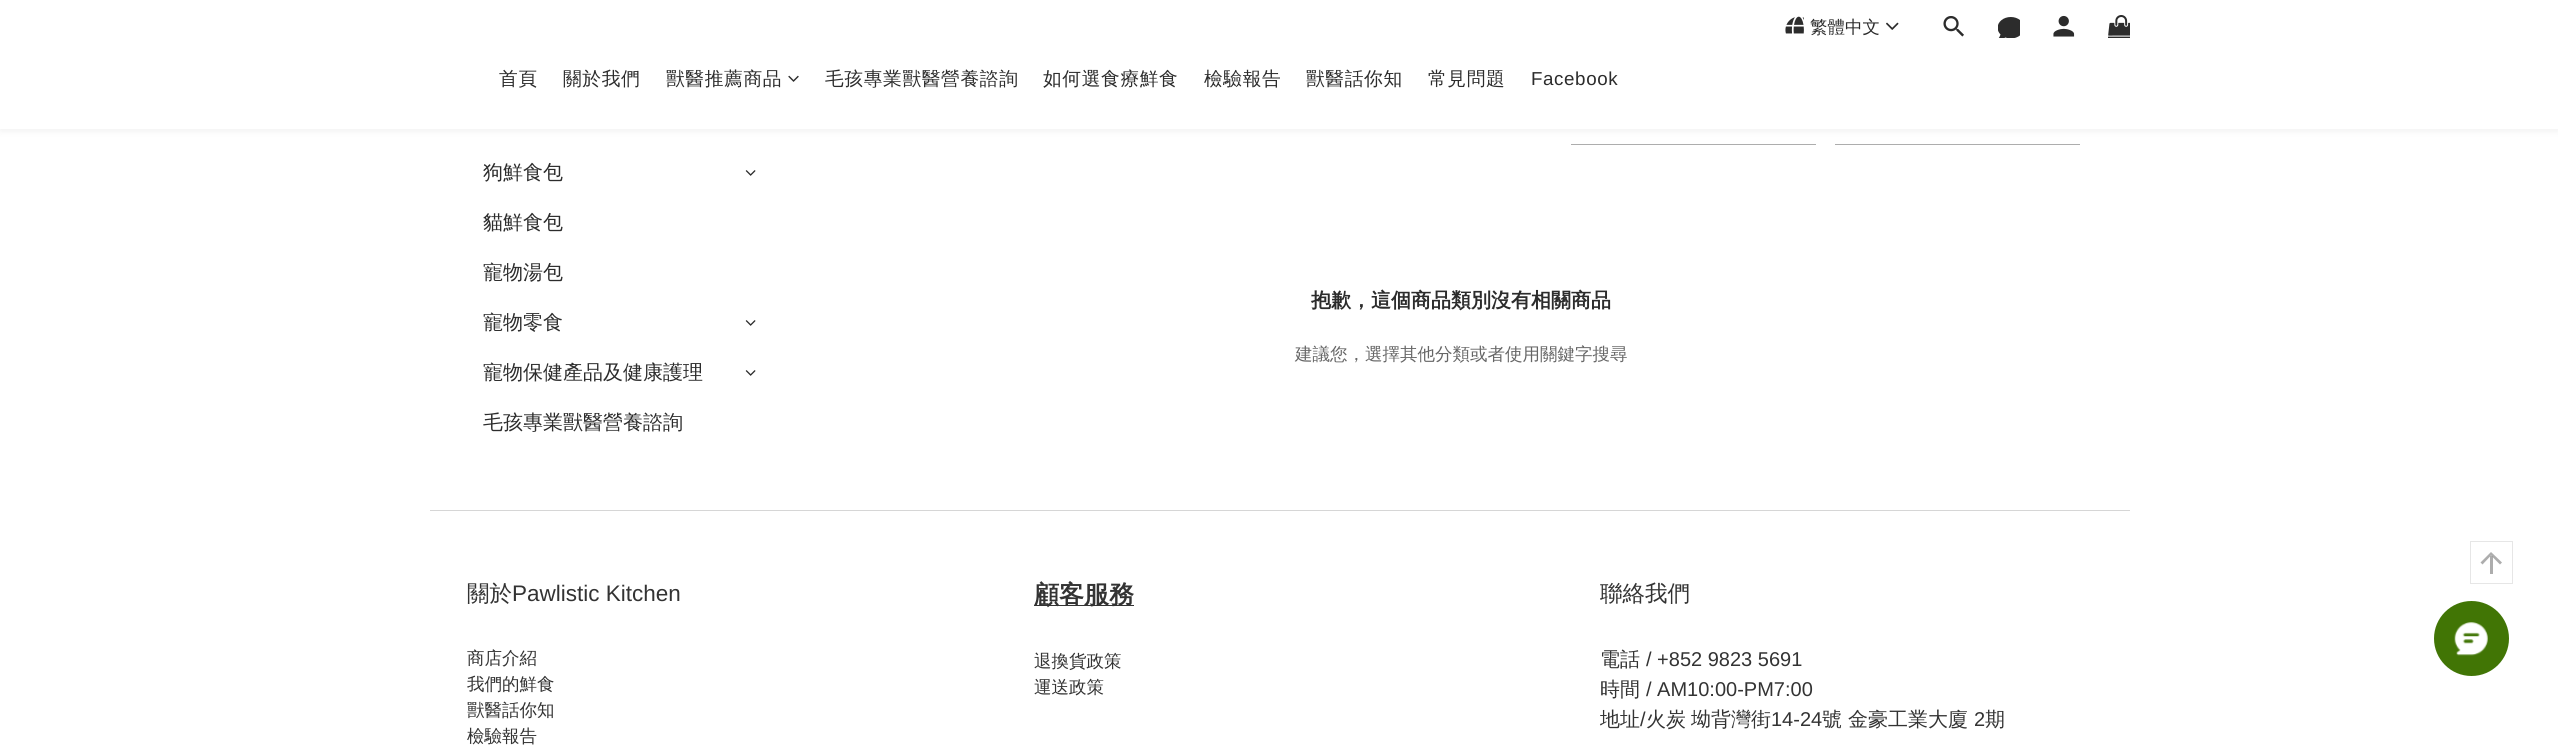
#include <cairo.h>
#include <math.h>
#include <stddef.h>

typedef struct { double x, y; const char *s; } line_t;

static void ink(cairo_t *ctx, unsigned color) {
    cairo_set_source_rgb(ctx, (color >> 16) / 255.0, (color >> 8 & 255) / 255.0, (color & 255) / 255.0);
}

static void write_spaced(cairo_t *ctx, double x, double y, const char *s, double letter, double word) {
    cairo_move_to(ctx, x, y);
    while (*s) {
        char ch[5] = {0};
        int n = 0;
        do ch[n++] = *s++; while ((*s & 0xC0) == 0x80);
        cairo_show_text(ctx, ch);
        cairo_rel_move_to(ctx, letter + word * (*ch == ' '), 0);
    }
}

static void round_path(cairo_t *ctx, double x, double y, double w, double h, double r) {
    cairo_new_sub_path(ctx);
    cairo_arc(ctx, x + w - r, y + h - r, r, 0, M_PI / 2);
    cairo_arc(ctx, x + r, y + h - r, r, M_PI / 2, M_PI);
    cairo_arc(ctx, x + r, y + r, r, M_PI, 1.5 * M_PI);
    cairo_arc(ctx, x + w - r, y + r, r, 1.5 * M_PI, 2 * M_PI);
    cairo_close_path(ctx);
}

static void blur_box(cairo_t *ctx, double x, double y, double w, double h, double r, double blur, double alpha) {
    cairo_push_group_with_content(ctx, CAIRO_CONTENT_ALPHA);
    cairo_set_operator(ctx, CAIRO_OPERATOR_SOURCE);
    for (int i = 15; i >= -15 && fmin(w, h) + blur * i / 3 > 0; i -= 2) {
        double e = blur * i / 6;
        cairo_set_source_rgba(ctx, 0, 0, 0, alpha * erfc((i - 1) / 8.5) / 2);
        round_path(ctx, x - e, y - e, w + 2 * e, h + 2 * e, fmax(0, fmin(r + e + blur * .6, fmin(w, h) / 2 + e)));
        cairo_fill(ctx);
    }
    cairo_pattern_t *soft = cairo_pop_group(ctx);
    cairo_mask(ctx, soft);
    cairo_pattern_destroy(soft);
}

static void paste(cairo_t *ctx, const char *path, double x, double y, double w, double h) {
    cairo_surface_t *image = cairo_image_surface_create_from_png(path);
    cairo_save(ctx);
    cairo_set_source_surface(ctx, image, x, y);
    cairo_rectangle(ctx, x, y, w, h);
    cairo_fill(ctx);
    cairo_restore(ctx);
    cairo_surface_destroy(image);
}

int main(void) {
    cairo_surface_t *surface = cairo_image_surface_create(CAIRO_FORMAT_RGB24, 2558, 746);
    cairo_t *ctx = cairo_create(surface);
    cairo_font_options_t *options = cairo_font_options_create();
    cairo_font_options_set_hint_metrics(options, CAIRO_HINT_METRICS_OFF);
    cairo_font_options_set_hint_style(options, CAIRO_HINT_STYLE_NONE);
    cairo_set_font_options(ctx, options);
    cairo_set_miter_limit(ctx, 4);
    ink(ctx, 0xFFFFFF);
    cairo_paint(ctx);
    ink(ctx, 0x000000);
    blur_box(ctx, 0, 3, 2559, 128, 0, 4, 0.06);
    ink(ctx, 0xFFFFFF);
    cairo_rectangle(ctx, 0, 0, 2558, 129);
    cairo_fill(ctx);
    paste(ctx, "media/1.png", 1785, 16, 19, 18);
    cairo_select_font_face(ctx, "WenQuanYi Zen Hei Medium", CAIRO_FONT_SLANT_NORMAL, CAIRO_FONT_WEIGHT_NORMAL);
    cairo_set_font_size(ctx, 17.5);
    ink(ctx, 0x2C2C2C);
    cairo_move_to(ctx, 1810, 33);
    cairo_show_text(ctx, "繁體中文");
    paste(ctx, "media/2.png", 1886, 22, 13, 8);
    paste(ctx, "media/3.png", 1943, 16, 21, 21);
    paste(ctx, "media/4.png", 1998, 17, 22, 21);
    paste(ctx, "media/5.png", 2053, 15, 22, 22);
    paste(ctx, "media/6.png", 2108, 15, 22, 23);
    cairo_set_font_size(ctx, 18.75);
    {
        static const line_t items[] = {
            {499, 85, "首頁"},
            {563, 85, "關於我們"},
            {666, 85, "獸醫推薦商品"},
        };
        for (size_t i = 0; i < sizeof items / sizeof *items; i++) {
            write_spaced(ctx, items[i].x, items[i].y, items[i].s, 0.6, 0);
        }
    }
    paste(ctx, "media/7.png", 788, 75, 11, 7);
    {
        static const line_t items[] = {
            {825, 85, "毛孩專業獸醫營養諮詢"},
            {1043, 85, "如何選食療鮮食"},
            {1204, 85, "檢驗報告"},
            {1306, 85, "獸醫話你知"},
            {1428, 85, "常見問題"},
        };
        for (size_t i = 0; i < sizeof items / sizeof *items; i++) {
            write_spaced(ctx, items[i].x, items[i].y, items[i].s, 0.6, 0);
        }
    }
    cairo_select_font_face(ctx, "Liberation Sans", CAIRO_FONT_SLANT_NORMAL, CAIRO_FONT_WEIGHT_NORMAL);
    write_spaced(ctx, 1531, 85, "Facebook", 0.6, 0);
    cairo_select_font_face(ctx, "WenQuanYi Zen Hei Medium", CAIRO_FONT_SLANT_NORMAL, CAIRO_FONT_WEIGHT_NORMAL);
    cairo_set_font_size(ctx, 20);
    cairo_move_to(ctx, 483, 179);
    cairo_show_text(ctx, "狗鮮食包");
    paste(ctx, "media/8.png", 745, 170, 11, 6);
    {
        static const line_t items[] = {
            {483, 229, "貓鮮食包"},
            {483, 279, "寵物湯包"},
            {483, 329, "寵物零食"},
        };
        for (size_t i = 0; i < sizeof items / sizeof *items; i++) {
            cairo_move_to(ctx, items[i].x, items[i].y);
            cairo_show_text(ctx, items[i].s);
        }
    }
    paste(ctx, "media/8.png", 745, 320, 11, 6);
    cairo_move_to(ctx, 483, 379);
    cairo_show_text(ctx, "寵物保健產品及健康護理");
    paste(ctx, "media/8.png", 745, 370, 11, 6);
    cairo_move_to(ctx, 483, 429);
    cairo_show_text(ctx, "毛孩專業獸醫營養諮詢");
    ink(ctx, 0xADADAD);
    cairo_rectangle(ctx, 1571, 144, 245, 1);
    cairo_fill(ctx);
    cairo_rectangle(ctx, 1835, 144, 245, 1);
    cairo_fill(ctx);
    cairo_select_font_face(ctx, "WenQuanYi Zen Hei", CAIRO_FONT_SLANT_NORMAL, CAIRO_FONT_WEIGHT_BOLD);
    ink(ctx, 0x2C2C2C);
    cairo_move_to(ctx, 1311, 307);
    cairo_show_text(ctx, "抱歉，這個商品類別沒有相關商品");
    cairo_select_font_face(ctx, "WenQuanYi Zen Hei Medium", CAIRO_FONT_SLANT_NORMAL, CAIRO_FONT_WEIGHT_NORMAL);
    cairo_set_font_size(ctx, 17.5);
    ink(ctx, 0x666666);
    cairo_move_to(ctx, 1295, 360);
    cairo_show_text(ctx, "建議您，選擇其他分類或者使用關鍵字搜尋");
    cairo_rectangle(ctx, 2470.5, 541.5, 42, 42);
    ink(ctx, 0xE6E6E6);
    cairo_set_line_width(ctx, 1);
    cairo_stroke(ctx);
    ink(ctx, 0xADADAD);
    cairo_new_path(ctx);
    cairo_move_to(ctx, 2491, 552);
    cairo_line_to(ctx, 2502, 562.5);
    cairo_line_to(ctx, 2500, 564.5);
    cairo_line_to(ctx, 2491, 555.5);
    cairo_close_path(ctx);
    cairo_move_to(ctx, 2480.5, 562.5);
    cairo_line_to(ctx, 2491, 552);
    cairo_line_to(ctx, 2491, 555.5);
    cairo_line_to(ctx, 2482.5, 564.5);
    cairo_close_path(ctx);
    cairo_fill(ctx);
    cairo_set_source_rgba(ctx, 0.6, 0.6, 0.6, 0.8);
    cairo_rectangle(ctx, 2490, 556, 3, 18);
    cairo_fill(ctx);
    ink(ctx, 0xD6D6D6);
    cairo_rectangle(ctx, 430, 510, 1700, 1);
    cairo_fill(ctx);
    cairo_set_font_size(ctx, 22.5);
    ink(ctx, 0x333333);
    cairo_move_to(ctx, 467, 601);
    cairo_show_text(ctx, "關於");
    cairo_select_font_face(ctx, "Liberation Sans", CAIRO_FONT_SLANT_NORMAL, CAIRO_FONT_WEIGHT_NORMAL);
    cairo_move_to(ctx, 512, 601);
    cairo_show_text(ctx, "Pawlistic Kitchen");
    cairo_select_font_face(ctx, "WenQuanYi Zen Hei Medium", CAIRO_FONT_SLANT_NORMAL, CAIRO_FONT_WEIGHT_NORMAL);
    cairo_set_font_size(ctx, 17.5);
    {
        static const line_t items[] = {
            {467, 664, "商店介紹"},
            {467, 690, "我們的鮮食"},
            {467, 716, "獸醫話你知"},
            {467, 742, "檢驗報告"},
        };
        for (size_t i = 0; i < sizeof items / sizeof *items; i++) {
            cairo_move_to(ctx, items[i].x, items[i].y);
            cairo_show_text(ctx, items[i].s);
        }
    }
    cairo_rectangle(ctx, 1034, 605, 100, 1);
    cairo_fill(ctx);
    cairo_select_font_face(ctx, "WenQuanYi Zen Hei", CAIRO_FONT_SLANT_NORMAL, CAIRO_FONT_WEIGHT_BOLD);
    cairo_set_font_size(ctx, 25);
    cairo_move_to(ctx, 1034, 603);
    cairo_show_text(ctx, "顧客服務");
    cairo_select_font_face(ctx, "WenQuanYi Zen Hei Medium", CAIRO_FONT_SLANT_NORMAL, CAIRO_FONT_WEIGHT_NORMAL);
    cairo_set_font_size(ctx, 17.5);
    cairo_move_to(ctx, 1034, 667);
    cairo_show_text(ctx, "退換貨政策");
    cairo_move_to(ctx, 1034, 693);
    cairo_show_text(ctx, "運送政策");
    cairo_set_font_size(ctx, 22.5);
    cairo_move_to(ctx, 1600, 601);
    cairo_show_text(ctx, "聯絡我們");
    cairo_set_font_size(ctx, 20);
    cairo_move_to(ctx, 1600, 666);
    cairo_show_text(ctx, "電話");
    cairo_select_font_face(ctx, "Liberation Sans", CAIRO_FONT_SLANT_NORMAL, CAIRO_FONT_WEIGHT_NORMAL);
    cairo_move_to(ctx, 1646, 666);
    cairo_show_text(ctx, "/ +852 9823 5691");
    cairo_select_font_face(ctx, "WenQuanYi Zen Hei Medium", CAIRO_FONT_SLANT_NORMAL, CAIRO_FONT_WEIGHT_NORMAL);
    cairo_move_to(ctx, 1600, 696);
    cairo_show_text(ctx, "時間");
    cairo_select_font_face(ctx, "Liberation Sans", CAIRO_FONT_SLANT_NORMAL, CAIRO_FONT_WEIGHT_NORMAL);
    cairo_move_to(ctx, 1646, 696);
    cairo_show_text(ctx, "/ AM10:00-PM7:00");
    cairo_select_font_face(ctx, "WenQuanYi Zen Hei Medium", CAIRO_FONT_SLANT_NORMAL, CAIRO_FONT_WEIGHT_NORMAL);
    cairo_move_to(ctx, 1600, 726);
    cairo_show_text(ctx, "地址");
    cairo_select_font_face(ctx, "Liberation Sans", CAIRO_FONT_SLANT_NORMAL, CAIRO_FONT_WEIGHT_NORMAL);
    cairo_move_to(ctx, 1640, 726);
    cairo_show_text(ctx, "/");
    cairo_select_font_face(ctx, "WenQuanYi Zen Hei Medium", CAIRO_FONT_SLANT_NORMAL, CAIRO_FONT_WEIGHT_NORMAL);
    cairo_move_to(ctx, 1646, 726);
    cairo_show_text(ctx, "火炭");
    cairo_move_to(ctx, 1691, 726);
    cairo_show_text(ctx, "坳背灣街");
    cairo_select_font_face(ctx, "Liberation Sans", CAIRO_FONT_SLANT_NORMAL, CAIRO_FONT_WEIGHT_NORMAL);
    cairo_move_to(ctx, 1771, 726);
    cairo_show_text(ctx, "14-24");
    cairo_select_font_face(ctx, "WenQuanYi Zen Hei Medium", CAIRO_FONT_SLANT_NORMAL, CAIRO_FONT_WEIGHT_NORMAL);
    cairo_move_to(ctx, 1822, 726);
    cairo_show_text(ctx, "號");
    cairo_move_to(ctx, 1848, 726);
    cairo_show_text(ctx, "金豪工業大廈");
    cairo_select_font_face(ctx, "Liberation Sans", CAIRO_FONT_SLANT_NORMAL, CAIRO_FONT_WEIGHT_NORMAL);
    cairo_move_to(ctx, 1974, 726);
    cairo_show_text(ctx, "2");
    cairo_select_font_face(ctx, "WenQuanYi Zen Hei Medium", CAIRO_FONT_SLANT_NORMAL, CAIRO_FONT_WEIGHT_NORMAL);
    cairo_move_to(ctx, 1985, 726);
    cairo_show_text(ctx, "期");
    ink(ctx, 0x417505);
    cairo_new_path(ctx);
    cairo_arc(ctx, 2471.5, 638.5, 37.5, 0, 2 * M_PI);
    cairo_fill(ctx);
    paste(ctx, "media/9.png", 2454, 622, 34, 34);
    cairo_surface_write_to_png(surface, "image.png");
    cairo_font_options_destroy(options);
    cairo_destroy(ctx);
    cairo_surface_destroy(surface);
    return 0;
}
